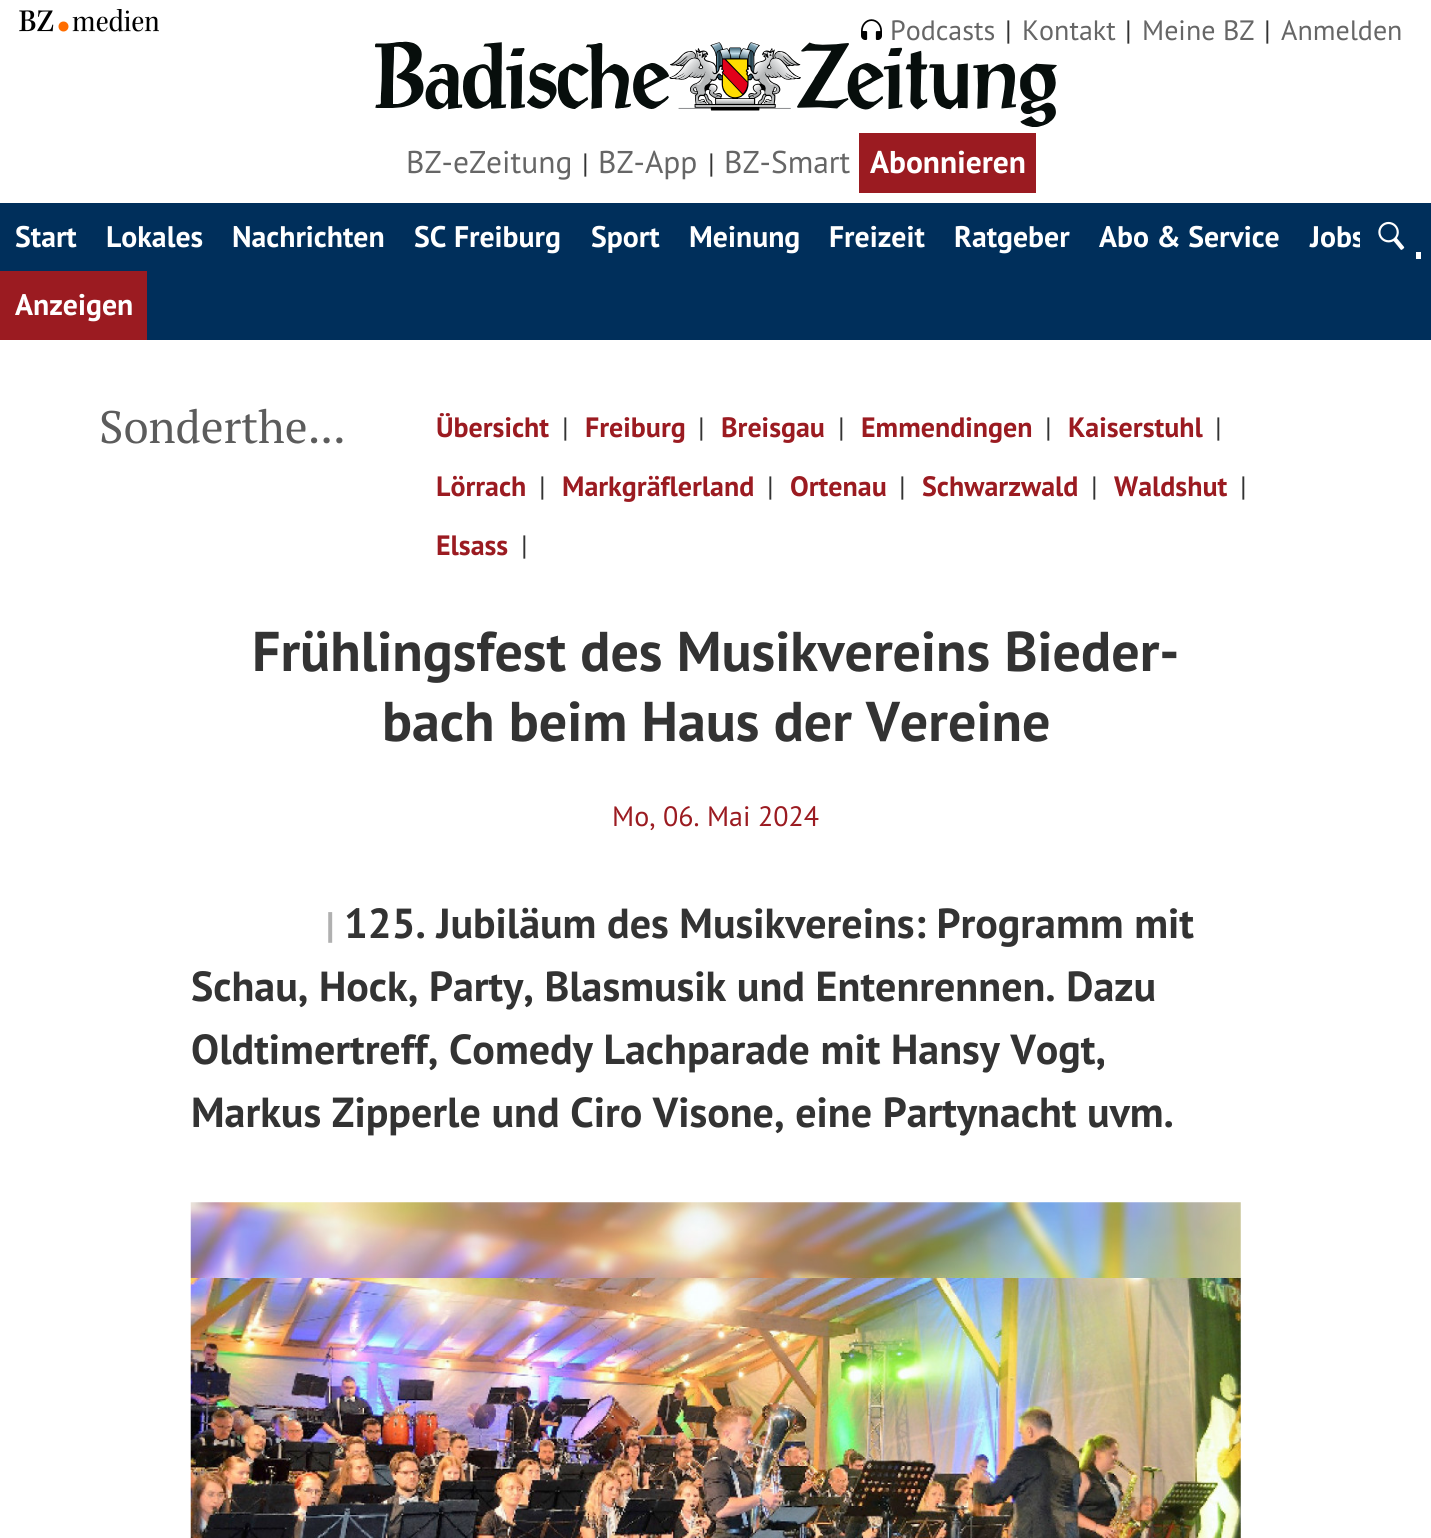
#include <cairo.h>
#include <math.h>
#include <stddef.h>

typedef struct { double x, y; const char *s; } line_t;

static void ink(cairo_t *ctx, unsigned color) {
    cairo_set_source_rgb(ctx, (color >> 16) / 255.0, (color >> 8 & 255) / 255.0, (color & 255) / 255.0);
}

static void paste(cairo_t *ctx, const char *path, double x, double y, double w, double h) {
    cairo_surface_t *image = cairo_image_surface_create_from_png(path);
    cairo_save(ctx);
    cairo_set_source_surface(ctx, image, x, y);
    cairo_rectangle(ctx, x, y, w, h);
    cairo_fill(ctx);
    cairo_restore(ctx);
    cairo_surface_destroy(image);
}

int main(void) {
    cairo_surface_t *surface = cairo_image_surface_create(CAIRO_FORMAT_RGB24, 1431, 1538);
    cairo_t *ctx = cairo_create(surface);
    cairo_font_options_t *options = cairo_font_options_create();
    cairo_font_options_set_hint_metrics(options, CAIRO_HINT_METRICS_OFF);
    cairo_font_options_set_hint_style(options, CAIRO_HINT_STYLE_NONE);
    cairo_set_font_options(ctx, options);
    cairo_set_miter_limit(ctx, 4);
    ink(ctx, 0xFFFFFF);
    cairo_paint(ctx);
    paste(ctx, "media/1.png", 19, 9, 140, 23);
    paste(ctx, "media/2.png", 861, 19, 21, 21);
    cairo_select_font_face(ctx, "PT Sans", CAIRO_FONT_SLANT_NORMAL, CAIRO_FONT_WEIGHT_NORMAL);
    cairo_set_font_size(ctx, 28);
    ink(ctx, 0x666666);
    cairo_move_to(ctx, 890, 40);
    cairo_show_text(ctx, "Podcasts");
    ink(ctx, 0x333333);
    cairo_move_to(ctx, 1005, 40);
    cairo_show_text(ctx, "|");
    ink(ctx, 0x666666);
    cairo_move_to(ctx, 1022, 40);
    cairo_show_text(ctx, "Kontakt");
    ink(ctx, 0x333333);
    cairo_move_to(ctx, 1125, 40);
    cairo_show_text(ctx, "|");
    ink(ctx, 0x666666);
    cairo_move_to(ctx, 1142, 40);
    cairo_show_text(ctx, "Meine BZ");
    ink(ctx, 0x333333);
    cairo_move_to(ctx, 1264, 40);
    cairo_show_text(ctx, "|");
    ink(ctx, 0x666666);
    cairo_move_to(ctx, 1281, 40);
    cairo_show_text(ctx, "Anmelden");
    paste(ctx, "media/3.png", 375, 41, 682, 86);
    cairo_set_font_size(ctx, 31.5);
    cairo_move_to(ctx, 406, 173);
    cairo_show_text(ctx, "BZ-eZeitung");
    cairo_set_font_size(ctx, 28);
    ink(ctx, 0x333333);
    cairo_move_to(ctx, 582, 173);
    cairo_show_text(ctx, "|");
    cairo_set_font_size(ctx, 31.5);
    ink(ctx, 0x666666);
    cairo_move_to(ctx, 598, 173);
    cairo_show_text(ctx, "BZ-App");
    cairo_set_font_size(ctx, 28);
    ink(ctx, 0x333333);
    cairo_move_to(ctx, 708, 173);
    cairo_show_text(ctx, "|");
    cairo_set_font_size(ctx, 31.5);
    ink(ctx, 0x666666);
    cairo_move_to(ctx, 724, 173);
    cairo_show_text(ctx, "BZ-Smart");
    ink(ctx, 0x9B1B21);
    cairo_rectangle(ctx, 859, 133, 177, 60);
    cairo_fill(ctx);
    cairo_select_font_face(ctx, "PT Sans", CAIRO_FONT_SLANT_NORMAL, CAIRO_FONT_WEIGHT_BOLD);
    ink(ctx, 0xFFFFFF);
    cairo_move_to(ctx, 870, 173);
    cairo_show_text(ctx, "Abonnieren");
    ink(ctx, 0x002F5B);
    cairo_rectangle(ctx, 0, 203, 1431, 137);
    cairo_fill(ctx);
    cairo_set_font_size(ctx, 29.75);
    ink(ctx, 0xFFFFFF);
    {
        static const line_t items[] = {
            {15, 247, "Start"},
            {106, 247, "Lokales"},
            {232, 247, "Nachrichten"},
            {414, 247, "SC Freiburg"},
            {591, 247, "Sport"},
            {689, 247, "Meinung"},
            {829, 247, "Freizeit"},
            {954, 247, "Ratgeber"},
            {1099, 247, "Abo & Service"},
            {1310, 247, "Jobs"},
        };
        for (size_t i = 0; i < sizeof items / sizeof *items; i++) {
            cairo_move_to(ctx, items[i].x, items[i].y);
            cairo_show_text(ctx, items[i].s);
        }
    }
    ink(ctx, 0x9B1B21);
    cairo_rectangle(ctx, 0, 271, 147, 69);
    cairo_fill(ctx);
    ink(ctx, 0xFFFFFF);
    cairo_move_to(ctx, 15, 315);
    cairo_show_text(ctx, "Anzeigen");
    ink(ctx, 0x002F5B);
    cairo_rectangle(ctx, 1360, 232, 4, 15);
    cairo_fill(ctx);
    paste(ctx, "media/4.png", 1378, 221, 27, 29);
    ink(ctx, 0xFFFFFF);
    cairo_rectangle(ctx, 1416, 252, 5, 7);
    cairo_fill(ctx);
    cairo_select_font_face(ctx, "PT Serif", CAIRO_FONT_SLANT_NORMAL, CAIRO_FONT_WEIGHT_NORMAL);
    cairo_set_font_size(ctx, 45.5);
    ink(ctx, 0x5C5C5C);
    cairo_move_to(ctx, 99, 443);
    cairo_show_text(ctx, "Sonderthe...");
    cairo_select_font_face(ctx, "PT Sans", CAIRO_FONT_SLANT_NORMAL, CAIRO_FONT_WEIGHT_BOLD);
    cairo_set_font_size(ctx, 28);
    ink(ctx, 0x9B1B21);
    cairo_move_to(ctx, 436, 437);
    cairo_show_text(ctx, "Übersicht");
    cairo_select_font_face(ctx, "PT Sans", CAIRO_FONT_SLANT_NORMAL, CAIRO_FONT_WEIGHT_NORMAL);
    ink(ctx, 0x333333);
    cairo_move_to(ctx, 562, 437);
    cairo_show_text(ctx, "|");
    cairo_select_font_face(ctx, "PT Sans", CAIRO_FONT_SLANT_NORMAL, CAIRO_FONT_WEIGHT_BOLD);
    ink(ctx, 0x9B1B21);
    cairo_move_to(ctx, 585, 437);
    cairo_show_text(ctx, "Freiburg");
    cairo_select_font_face(ctx, "PT Sans", CAIRO_FONT_SLANT_NORMAL, CAIRO_FONT_WEIGHT_NORMAL);
    ink(ctx, 0x333333);
    cairo_move_to(ctx, 698, 437);
    cairo_show_text(ctx, "|");
    cairo_select_font_face(ctx, "PT Sans", CAIRO_FONT_SLANT_NORMAL, CAIRO_FONT_WEIGHT_BOLD);
    ink(ctx, 0x9B1B21);
    cairo_move_to(ctx, 721, 437);
    cairo_show_text(ctx, "Breisgau");
    cairo_select_font_face(ctx, "PT Sans", CAIRO_FONT_SLANT_NORMAL, CAIRO_FONT_WEIGHT_NORMAL);
    ink(ctx, 0x333333);
    cairo_move_to(ctx, 838, 437);
    cairo_show_text(ctx, "|");
    cairo_select_font_face(ctx, "PT Sans", CAIRO_FONT_SLANT_NORMAL, CAIRO_FONT_WEIGHT_BOLD);
    ink(ctx, 0x9B1B21);
    cairo_move_to(ctx, 861, 437);
    cairo_show_text(ctx, "Emmendingen");
    cairo_select_font_face(ctx, "PT Sans", CAIRO_FONT_SLANT_NORMAL, CAIRO_FONT_WEIGHT_NORMAL);
    ink(ctx, 0x333333);
    cairo_move_to(ctx, 1045, 437);
    cairo_show_text(ctx, "|");
    cairo_select_font_face(ctx, "PT Sans", CAIRO_FONT_SLANT_NORMAL, CAIRO_FONT_WEIGHT_BOLD);
    ink(ctx, 0x9B1B21);
    cairo_move_to(ctx, 1068, 437);
    cairo_show_text(ctx, "Kaiserstuhl");
    cairo_select_font_face(ctx, "PT Sans", CAIRO_FONT_SLANT_NORMAL, CAIRO_FONT_WEIGHT_NORMAL);
    ink(ctx, 0x333333);
    cairo_move_to(ctx, 1215, 437);
    cairo_show_text(ctx, "|");
    cairo_select_font_face(ctx, "PT Sans", CAIRO_FONT_SLANT_NORMAL, CAIRO_FONT_WEIGHT_BOLD);
    ink(ctx, 0x9B1B21);
    cairo_move_to(ctx, 436, 496);
    cairo_show_text(ctx, "Lörrach");
    cairo_select_font_face(ctx, "PT Sans", CAIRO_FONT_SLANT_NORMAL, CAIRO_FONT_WEIGHT_NORMAL);
    ink(ctx, 0x333333);
    cairo_move_to(ctx, 539, 496);
    cairo_show_text(ctx, "|");
    cairo_select_font_face(ctx, "PT Sans", CAIRO_FONT_SLANT_NORMAL, CAIRO_FONT_WEIGHT_BOLD);
    ink(ctx, 0x9B1B21);
    cairo_move_to(ctx, 562, 496);
    cairo_show_text(ctx, "Markgräflerland");
    cairo_select_font_face(ctx, "PT Sans", CAIRO_FONT_SLANT_NORMAL, CAIRO_FONT_WEIGHT_NORMAL);
    ink(ctx, 0x333333);
    cairo_move_to(ctx, 767, 496);
    cairo_show_text(ctx, "|");
    cairo_select_font_face(ctx, "PT Sans", CAIRO_FONT_SLANT_NORMAL, CAIRO_FONT_WEIGHT_BOLD);
    ink(ctx, 0x9B1B21);
    cairo_move_to(ctx, 790, 496);
    cairo_show_text(ctx, "Ortenau");
    cairo_select_font_face(ctx, "PT Sans", CAIRO_FONT_SLANT_NORMAL, CAIRO_FONT_WEIGHT_NORMAL);
    ink(ctx, 0x333333);
    cairo_move_to(ctx, 899, 496);
    cairo_show_text(ctx, "|");
    cairo_select_font_face(ctx, "PT Sans", CAIRO_FONT_SLANT_NORMAL, CAIRO_FONT_WEIGHT_BOLD);
    ink(ctx, 0x9B1B21);
    cairo_move_to(ctx, 922, 496);
    cairo_show_text(ctx, "Schwarzwald");
    cairo_select_font_face(ctx, "PT Sans", CAIRO_FONT_SLANT_NORMAL, CAIRO_FONT_WEIGHT_NORMAL);
    ink(ctx, 0x333333);
    cairo_move_to(ctx, 1091, 496);
    cairo_show_text(ctx, "|");
    cairo_select_font_face(ctx, "PT Sans", CAIRO_FONT_SLANT_NORMAL, CAIRO_FONT_WEIGHT_BOLD);
    ink(ctx, 0x9B1B21);
    cairo_move_to(ctx, 1114, 496);
    cairo_show_text(ctx, "Waldshut");
    cairo_select_font_face(ctx, "PT Sans", CAIRO_FONT_SLANT_NORMAL, CAIRO_FONT_WEIGHT_NORMAL);
    ink(ctx, 0x333333);
    cairo_move_to(ctx, 1240, 496);
    cairo_show_text(ctx, "|");
    cairo_select_font_face(ctx, "PT Sans", CAIRO_FONT_SLANT_NORMAL, CAIRO_FONT_WEIGHT_BOLD);
    ink(ctx, 0x9B1B21);
    cairo_move_to(ctx, 436, 555);
    cairo_show_text(ctx, "Elsass");
    cairo_select_font_face(ctx, "PT Sans", CAIRO_FONT_SLANT_NORMAL, CAIRO_FONT_WEIGHT_NORMAL);
    ink(ctx, 0x333333);
    cairo_move_to(ctx, 521, 555);
    cairo_show_text(ctx, "|");
    cairo_select_font_face(ctx, "PT Sans", CAIRO_FONT_SLANT_NORMAL, CAIRO_FONT_WEIGHT_BOLD);
    cairo_set_font_size(ctx, 56);
    cairo_move_to(ctx, 252, 671);
    cairo_show_text(ctx, "Frühlingsfest des Musikvereins Bieder-");
    cairo_move_to(ctx, 382, 741);
    cairo_show_text(ctx, "bach beim Haus der Vereine");
    cairo_select_font_face(ctx, "PT Sans", CAIRO_FONT_SLANT_NORMAL, CAIRO_FONT_WEIGHT_NORMAL);
    cairo_set_font_size(ctx, 28);
    ink(ctx, 0x9B1B21);
    cairo_move_to(ctx, 612, 826);
    cairo_show_text(ctx, "Mo, 06. Mai 2024");
    cairo_select_font_face(ctx, "PT Sans", CAIRO_FONT_SLANT_NORMAL, CAIRO_FONT_WEIGHT_BOLD);
    cairo_set_font_size(ctx, 37);
    ink(ctx, 0xB0B0B0);
    cairo_move_to(ctx, 326, 938);
    cairo_show_text(ctx, "|");
    cairo_set_font_size(ctx, 42);
    ink(ctx, 0x333333);
    {
        static const line_t items[] = {
            {344, 938, "125. Jubiläum des Musikvereins: Programm mit"},
            {191, 1001, "Schau, Hock, Party, Blasmusik und Entenrennen. Dazu"},
            {191, 1064, "Oldtimertreff, Comedy Lachparade mit Hansy Vogt,"},
            {191, 1127, "Markus Zipperle und Ciro Visone, eine Partynacht uvm."},
        };
        for (size_t i = 0; i < sizeof items / sizeof *items; i++) {
            cairo_move_to(ctx, items[i].x, items[i].y);
            cairo_show_text(ctx, items[i].s);
        }
    }
    paste(ctx, "media/5.png", 190, 1202, 1051, 336);
    cairo_surface_write_to_png(surface, "image.png");
    cairo_font_options_destroy(options);
    cairo_destroy(ctx);
    cairo_surface_destroy(surface);
    return 0;
}
